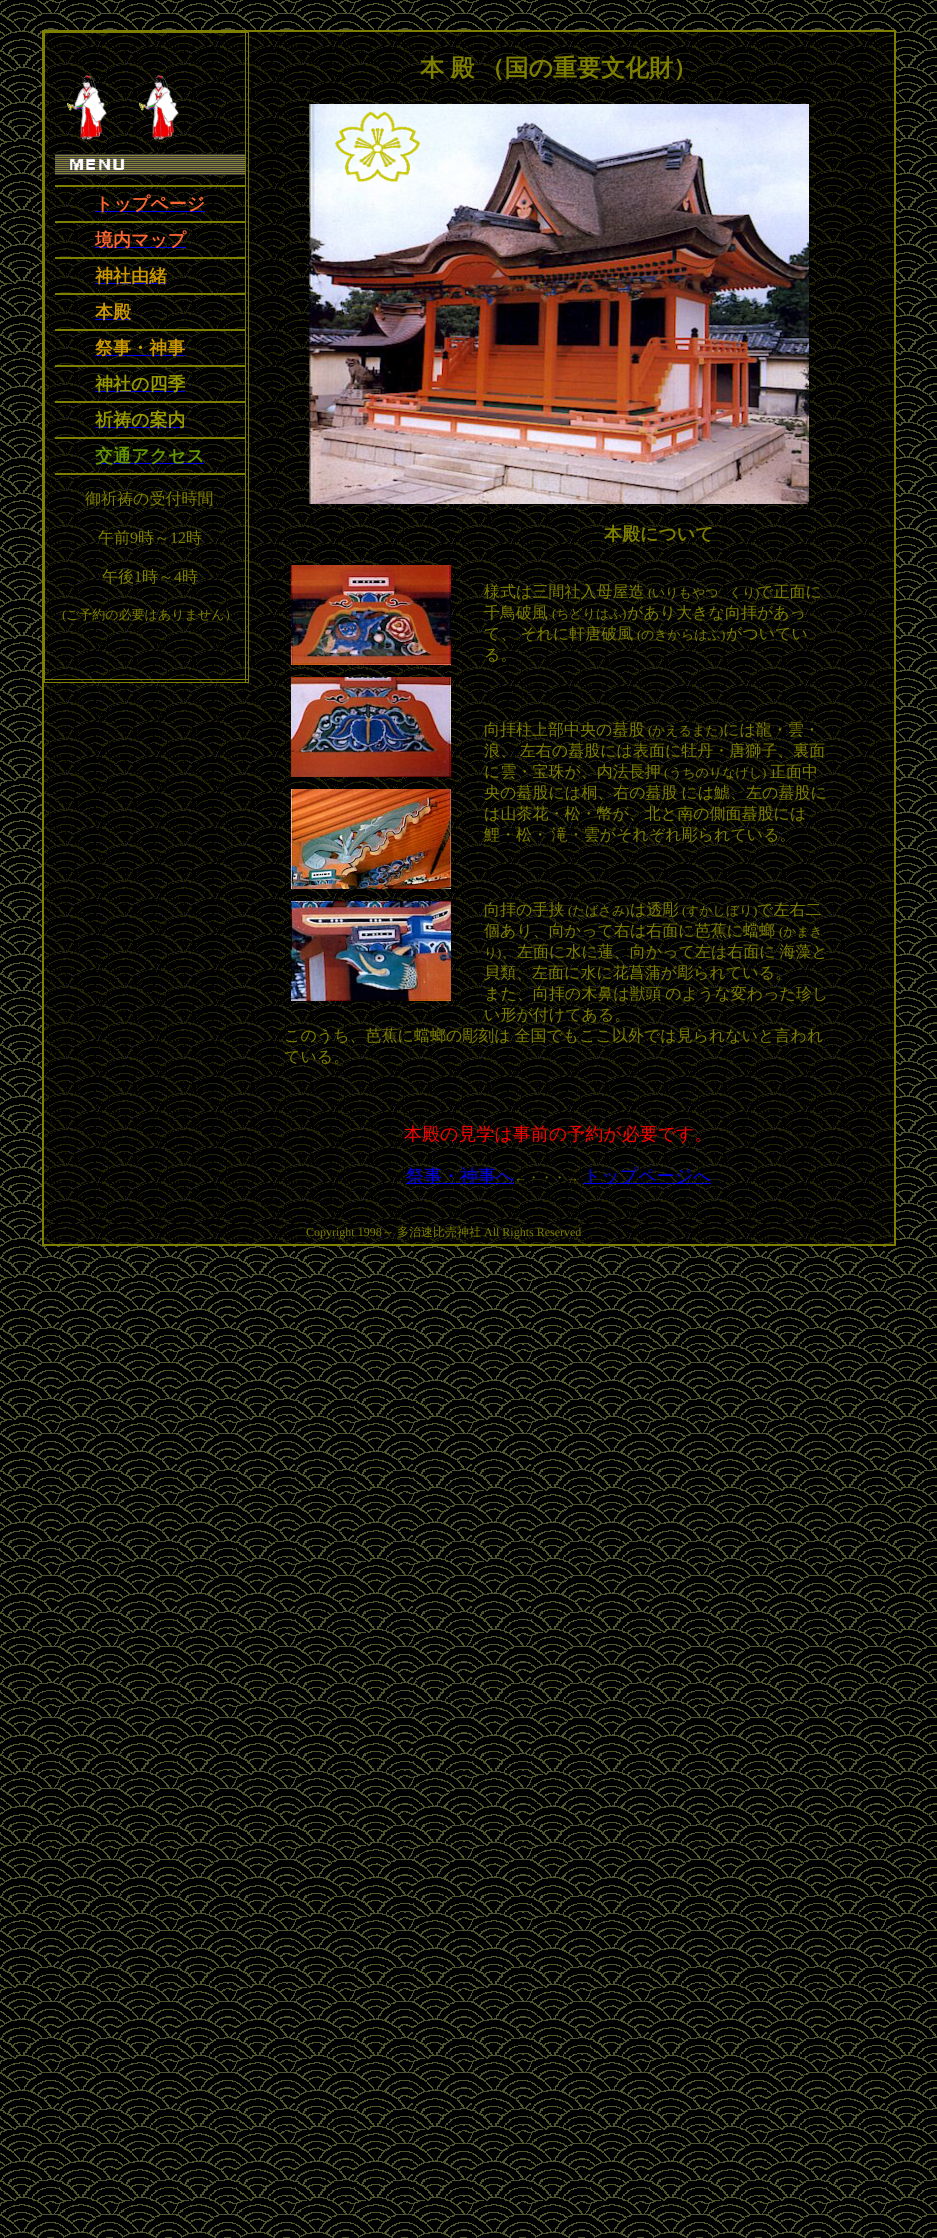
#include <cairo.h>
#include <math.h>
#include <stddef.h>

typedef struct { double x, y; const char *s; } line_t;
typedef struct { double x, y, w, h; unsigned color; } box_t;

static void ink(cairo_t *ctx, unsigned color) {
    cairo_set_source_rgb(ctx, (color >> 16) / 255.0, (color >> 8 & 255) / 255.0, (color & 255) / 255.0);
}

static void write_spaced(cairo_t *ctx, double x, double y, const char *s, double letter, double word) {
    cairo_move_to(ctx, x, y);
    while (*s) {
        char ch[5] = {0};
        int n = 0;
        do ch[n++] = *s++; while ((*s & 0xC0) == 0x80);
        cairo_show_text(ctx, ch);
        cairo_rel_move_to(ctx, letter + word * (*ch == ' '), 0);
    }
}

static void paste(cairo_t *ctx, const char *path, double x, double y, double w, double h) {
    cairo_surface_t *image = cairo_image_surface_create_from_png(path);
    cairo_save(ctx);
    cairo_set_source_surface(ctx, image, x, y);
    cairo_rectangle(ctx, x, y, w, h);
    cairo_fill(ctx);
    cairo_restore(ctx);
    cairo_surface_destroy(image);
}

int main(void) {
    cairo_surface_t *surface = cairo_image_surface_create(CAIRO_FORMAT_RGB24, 937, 2238);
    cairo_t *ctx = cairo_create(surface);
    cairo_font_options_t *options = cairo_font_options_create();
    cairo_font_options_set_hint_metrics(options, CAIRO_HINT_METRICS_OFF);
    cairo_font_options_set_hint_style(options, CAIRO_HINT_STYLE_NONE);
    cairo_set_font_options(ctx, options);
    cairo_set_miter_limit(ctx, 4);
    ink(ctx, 0xFFFFFF);
    cairo_paint(ctx);
    paste(ctx, "media/1.png", 0, 0, 937, 2238);
    paste(ctx, "media/2.png", 44, 32, 850, 1212);
    cairo_rectangle(ctx, 43, 31, 852, 1214);
    ink(ctx, 0x808000);
    cairo_stroke(ctx);
    {
        static const box_t items[] = {
            {44, 32, 205, 1, 0x808000},
            {245, 32, 1, 651, 0x808000},
            {248, 32, 1, 651, 0x808000},
            {44, 679, 205, 1, 0x808000},
            {44, 682, 205, 1, 0x808000},
            {44, 32, 1, 651, 0x808000},
        };
        for (size_t i = 0; i < sizeof items / sizeof *items; i++) {
            ink(ctx, items[i].color);
            cairo_rectangle(ctx, items[i].x, items[i].y, items[i].w, items[i].h);
            cairo_fill(ctx);
        }
    }
    paste(ctx, "media/3.png", 67, 75, 40, 65);
    paste(ctx, "media/4.png", 139, 75, 40, 65);
    paste(ctx, "media/5.png", 55, 154, 190, 21);
    cairo_rectangle(ctx, 55, 185, 190, 2);
    cairo_fill(ctx);
    ink(ctx, 0x0000EE);
    cairo_rectangle(ctx, 95, 211, 110, 1);
    cairo_fill(ctx);
    cairo_select_font_face(ctx, "WenQuanYi Zen Hei", CAIRO_FONT_SLANT_NORMAL, CAIRO_FONT_WEIGHT_BOLD);
    cairo_set_font_size(ctx, 18);
    ink(ctx, 0xFF6633);
    cairo_move_to(ctx, 95, 210);
    cairo_show_text(ctx, "トップページ");
    ink(ctx, 0x808000);
    cairo_rectangle(ctx, 55, 221, 190, 2);
    cairo_fill(ctx);
    ink(ctx, 0x0000EE);
    cairo_rectangle(ctx, 95, 247, 91, 1);
    cairo_fill(ctx);
    ink(ctx, 0xFF6633);
    cairo_move_to(ctx, 95, 246);
    cairo_show_text(ctx, "境内マップ");
    ink(ctx, 0x808000);
    cairo_rectangle(ctx, 55, 257, 190, 2);
    cairo_fill(ctx);
    ink(ctx, 0x0000EE);
    cairo_rectangle(ctx, 95, 283, 72, 1);
    cairo_fill(ctx);
    ink(ctx, 0xCC9900);
    cairo_move_to(ctx, 95, 282);
    cairo_show_text(ctx, "神社由緒");
    ink(ctx, 0x808000);
    cairo_rectangle(ctx, 55, 293, 190, 2);
    cairo_fill(ctx);
    ink(ctx, 0x0000EE);
    cairo_rectangle(ctx, 95, 319, 36, 1);
    cairo_fill(ctx);
    ink(ctx, 0xCC9900);
    cairo_move_to(ctx, 95, 318);
    cairo_show_text(ctx, "本殿");
    ink(ctx, 0x808000);
    cairo_rectangle(ctx, 55, 329, 190, 2);
    cairo_fill(ctx);
    ink(ctx, 0x0000EE);
    cairo_rectangle(ctx, 95, 355, 90, 1);
    cairo_fill(ctx);
    ink(ctx, 0xCC9900);
    cairo_move_to(ctx, 95, 354);
    cairo_show_text(ctx, "祭事・神事");
    ink(ctx, 0x808000);
    cairo_rectangle(ctx, 55, 365, 190, 2);
    cairo_fill(ctx);
    ink(ctx, 0x0000EE);
    cairo_rectangle(ctx, 95, 391, 90, 1);
    cairo_fill(ctx);
    ink(ctx, 0x999900);
    cairo_move_to(ctx, 95, 390);
    cairo_show_text(ctx, "神社の四季");
    ink(ctx, 0x808000);
    cairo_rectangle(ctx, 55, 401, 190, 2);
    cairo_fill(ctx);
    ink(ctx, 0x0000EE);
    cairo_rectangle(ctx, 95, 427, 90, 1);
    cairo_fill(ctx);
    ink(ctx, 0x999900);
    cairo_move_to(ctx, 95, 426);
    cairo_show_text(ctx, "祈祷の案内");
    ink(ctx, 0x808000);
    cairo_rectangle(ctx, 55, 437, 190, 2);
    cairo_fill(ctx);
    ink(ctx, 0x0000EE);
    cairo_rectangle(ctx, 95, 463, 109, 1);
    cairo_fill(ctx);
    ink(ctx, 0x669900);
    cairo_move_to(ctx, 95, 462);
    cairo_show_text(ctx, "交通アクセス");
    ink(ctx, 0x808000);
    cairo_rectangle(ctx, 55, 473, 190, 2);
    cairo_fill(ctx);
    cairo_select_font_face(ctx, "WenQuanYi Zen Hei Medium", CAIRO_FONT_SLANT_NORMAL, CAIRO_FONT_WEIGHT_NORMAL);
    cairo_set_font_size(ctx, 16);
    cairo_move_to(ctx, 85, 504);
    cairo_show_text(ctx, "御祈祷の受付時間");
    cairo_move_to(ctx, 98, 543);
    cairo_show_text(ctx, "午前");
    cairo_select_font_face(ctx, "Liberation Serif", CAIRO_FONT_SLANT_NORMAL, CAIRO_FONT_WEIGHT_NORMAL);
    cairo_move_to(ctx, 130, 543);
    cairo_show_text(ctx, "9");
    cairo_select_font_face(ctx, "WenQuanYi Zen Hei Medium", CAIRO_FONT_SLANT_NORMAL, CAIRO_FONT_WEIGHT_NORMAL);
    cairo_move_to(ctx, 138, 543);
    cairo_show_text(ctx, "時～");
    cairo_select_font_face(ctx, "Liberation Serif", CAIRO_FONT_SLANT_NORMAL, CAIRO_FONT_WEIGHT_NORMAL);
    cairo_move_to(ctx, 170, 543);
    cairo_show_text(ctx, "12");
    cairo_select_font_face(ctx, "WenQuanYi Zen Hei Medium", CAIRO_FONT_SLANT_NORMAL, CAIRO_FONT_WEIGHT_NORMAL);
    cairo_move_to(ctx, 186, 543);
    cairo_show_text(ctx, "時");
    cairo_move_to(ctx, 102, 582);
    cairo_show_text(ctx, "午後");
    cairo_select_font_face(ctx, "Liberation Serif", CAIRO_FONT_SLANT_NORMAL, CAIRO_FONT_WEIGHT_NORMAL);
    cairo_move_to(ctx, 134, 582);
    cairo_show_text(ctx, "1");
    cairo_select_font_face(ctx, "WenQuanYi Zen Hei Medium", CAIRO_FONT_SLANT_NORMAL, CAIRO_FONT_WEIGHT_NORMAL);
    cairo_move_to(ctx, 142, 582);
    cairo_show_text(ctx, "時～");
    cairo_select_font_face(ctx, "Liberation Serif", CAIRO_FONT_SLANT_NORMAL, CAIRO_FONT_WEIGHT_NORMAL);
    cairo_move_to(ctx, 174, 582);
    cairo_show_text(ctx, "4");
    cairo_select_font_face(ctx, "WenQuanYi Zen Hei Medium", CAIRO_FONT_SLANT_NORMAL, CAIRO_FONT_WEIGHT_NORMAL);
    cairo_move_to(ctx, 182, 582);
    cairo_show_text(ctx, "時");
    cairo_select_font_face(ctx, "Liberation Serif", CAIRO_FONT_SLANT_NORMAL, CAIRO_FONT_WEIGHT_NORMAL);
    cairo_set_font_size(ctx, 13);
    cairo_move_to(ctx, 62, 619);
    cairo_show_text(ctx, "(");
    cairo_select_font_face(ctx, "WenQuanYi Zen Hei Medium", CAIRO_FONT_SLANT_NORMAL, CAIRO_FONT_WEIGHT_NORMAL);
    cairo_move_to(ctx, 66, 619);
    cairo_show_text(ctx, "ご予約の必要はありません）");
    cairo_select_font_face(ctx, "WenQuanYi Zen Hei", CAIRO_FONT_SLANT_NORMAL, CAIRO_FONT_WEIGHT_BOLD);
    cairo_set_font_size(ctx, 24);
    write_spaced(ctx, 420, 76, "本 殿 （国の重要文化財）", 0, -1);
    paste(ctx, "media/6.png", 309, 104, 500, 400);
    cairo_set_font_size(ctx, 18);
    cairo_move_to(ctx, 604, 540);
    cairo_show_text(ctx, "本殿について");
    paste(ctx, "media/7.png", 291, 565, 160, 100);
    paste(ctx, "media/8.png", 291, 677, 160, 100);
    paste(ctx, "media/9.png", 291, 789, 160, 100);
    paste(ctx, "media/10.png", 291, 901, 160, 100);
    cairo_select_font_face(ctx, "WenQuanYi Zen Hei Medium", CAIRO_FONT_SLANT_NORMAL, CAIRO_FONT_WEIGHT_NORMAL);
    cairo_set_font_size(ctx, 16);
    cairo_move_to(ctx, 484, 597);
    cairo_show_text(ctx, "様式は三間社入母屋造");
    cairo_select_font_face(ctx, "Liberation Serif", CAIRO_FONT_SLANT_NORMAL, CAIRO_FONT_WEIGHT_NORMAL);
    cairo_set_font_size(ctx, 13);
    cairo_move_to(ctx, 648, 597);
    cairo_show_text(ctx, "(");
    cairo_select_font_face(ctx, "WenQuanYi Zen Hei Medium", CAIRO_FONT_SLANT_NORMAL, CAIRO_FONT_WEIGHT_NORMAL);
    cairo_move_to(ctx, 652, 597);
    cairo_show_text(ctx, "いりもやつ");
    cairo_move_to(ctx, 729, 597);
    cairo_show_text(ctx, "くり");
    cairo_select_font_face(ctx, "Liberation Serif", CAIRO_FONT_SLANT_NORMAL, CAIRO_FONT_WEIGHT_NORMAL);
    cairo_move_to(ctx, 755, 597);
    cairo_show_text(ctx, ")");
    cairo_select_font_face(ctx, "WenQuanYi Zen Hei Medium", CAIRO_FONT_SLANT_NORMAL, CAIRO_FONT_WEIGHT_NORMAL);
    cairo_set_font_size(ctx, 16);
    cairo_move_to(ctx, 757, 597);
    cairo_show_text(ctx, "で正面に");
    cairo_move_to(ctx, 484, 618);
    cairo_show_text(ctx, "千鳥破風");
    cairo_select_font_face(ctx, "Liberation Serif", CAIRO_FONT_SLANT_NORMAL, CAIRO_FONT_WEIGHT_NORMAL);
    cairo_set_font_size(ctx, 13);
    cairo_move_to(ctx, 552, 618);
    cairo_show_text(ctx, "(");
    cairo_select_font_face(ctx, "WenQuanYi Zen Hei Medium", CAIRO_FONT_SLANT_NORMAL, CAIRO_FONT_WEIGHT_NORMAL);
    cairo_move_to(ctx, 556, 618);
    cairo_show_text(ctx, "ちどりはふ");
    cairo_select_font_face(ctx, "Liberation Serif", CAIRO_FONT_SLANT_NORMAL, CAIRO_FONT_WEIGHT_NORMAL);
    cairo_move_to(ctx, 622, 618);
    cairo_show_text(ctx, ")");
    cairo_select_font_face(ctx, "WenQuanYi Zen Hei Medium", CAIRO_FONT_SLANT_NORMAL, CAIRO_FONT_WEIGHT_NORMAL);
    cairo_set_font_size(ctx, 16);
    cairo_move_to(ctx, 627, 618);
    cairo_show_text(ctx, "があり大きな向拝があっ");
    write_spaced(ctx, 484, 639, "て、 それに軒唐破風", 0, -1);
    cairo_select_font_face(ctx, "Liberation Serif", CAIRO_FONT_SLANT_NORMAL, CAIRO_FONT_WEIGHT_NORMAL);
    cairo_set_font_size(ctx, 13);
    cairo_move_to(ctx, 637, 639);
    cairo_show_text(ctx, "(");
    cairo_select_font_face(ctx, "WenQuanYi Zen Hei Medium", CAIRO_FONT_SLANT_NORMAL, CAIRO_FONT_WEIGHT_NORMAL);
    cairo_move_to(ctx, 641, 639);
    cairo_show_text(ctx, "のきからはふ");
    cairo_select_font_face(ctx, "Liberation Serif", CAIRO_FONT_SLANT_NORMAL, CAIRO_FONT_WEIGHT_NORMAL);
    cairo_move_to(ctx, 721, 639);
    cairo_show_text(ctx, ")");
    cairo_select_font_face(ctx, "WenQuanYi Zen Hei Medium", CAIRO_FONT_SLANT_NORMAL, CAIRO_FONT_WEIGHT_NORMAL);
    cairo_set_font_size(ctx, 16);
    {
        static const line_t items[] = {
            {726, 639, "がついてい"},
            {484, 660, "る。"},
            {484, 735, "向拝柱上部中央の蟇股"},
        };
        for (size_t i = 0; i < sizeof items / sizeof *items; i++) {
            cairo_move_to(ctx, items[i].x, items[i].y);
            cairo_show_text(ctx, items[i].s);
        }
    }
    cairo_select_font_face(ctx, "Liberation Serif", CAIRO_FONT_SLANT_NORMAL, CAIRO_FONT_WEIGHT_NORMAL);
    cairo_set_font_size(ctx, 13);
    cairo_move_to(ctx, 648, 735);
    cairo_show_text(ctx, "(");
    cairo_select_font_face(ctx, "WenQuanYi Zen Hei Medium", CAIRO_FONT_SLANT_NORMAL, CAIRO_FONT_WEIGHT_NORMAL);
    cairo_move_to(ctx, 652, 735);
    cairo_show_text(ctx, "かえるまた");
    cairo_select_font_face(ctx, "Liberation Serif", CAIRO_FONT_SLANT_NORMAL, CAIRO_FONT_WEIGHT_NORMAL);
    cairo_move_to(ctx, 719, 735);
    cairo_show_text(ctx, ")");
    cairo_select_font_face(ctx, "WenQuanYi Zen Hei Medium", CAIRO_FONT_SLANT_NORMAL, CAIRO_FONT_WEIGHT_NORMAL);
    cairo_set_font_size(ctx, 16);
    cairo_move_to(ctx, 723, 735);
    cairo_show_text(ctx, "には龍・雲・");
    write_spaced(ctx, 484, 756, "浪、 左右の蟇股には表面に牡丹・唐獅子、裏面", 0, -1);
    cairo_move_to(ctx, 484, 777);
    cairo_show_text(ctx, "に雲・宝珠が、内法長押");
    cairo_select_font_face(ctx, "Liberation Serif", CAIRO_FONT_SLANT_NORMAL, CAIRO_FONT_WEIGHT_NORMAL);
    cairo_set_font_size(ctx, 13);
    cairo_move_to(ctx, 664, 777);
    cairo_show_text(ctx, "(");
    cairo_select_font_face(ctx, "WenQuanYi Zen Hei Medium", CAIRO_FONT_SLANT_NORMAL, CAIRO_FONT_WEIGHT_NORMAL);
    cairo_move_to(ctx, 669, 777);
    cairo_show_text(ctx, "うちのりなげし");
    cairo_select_font_face(ctx, "Liberation Serif", CAIRO_FONT_SLANT_NORMAL, CAIRO_FONT_WEIGHT_NORMAL);
    cairo_move_to(ctx, 762, 777);
    cairo_show_text(ctx, ")");
    cairo_select_font_face(ctx, "WenQuanYi Zen Hei Medium", CAIRO_FONT_SLANT_NORMAL, CAIRO_FONT_WEIGHT_NORMAL);
    cairo_set_font_size(ctx, 16);
    cairo_move_to(ctx, 770, 777);
    cairo_show_text(ctx, "正面中");
    write_spaced(ctx, 484, 798, "央の蟇股には桐、右の蟇股 には鯱、左の蟇股に", 0, -1);
    cairo_move_to(ctx, 484, 819);
    cairo_show_text(ctx, "は山茶花・松・幣が、北と南の側面蟇股には");
    write_spaced(ctx, 484, 840, "鯉・松・ 滝・雲がそれぞれ彫られている。", 0, -1);
    cairo_move_to(ctx, 484, 915);
    cairo_show_text(ctx, "向拝の手挟");
    cairo_select_font_face(ctx, "Liberation Serif", CAIRO_FONT_SLANT_NORMAL, CAIRO_FONT_WEIGHT_NORMAL);
    cairo_set_font_size(ctx, 13);
    cairo_move_to(ctx, 568, 915);
    cairo_show_text(ctx, "(");
    cairo_select_font_face(ctx, "WenQuanYi Zen Hei Medium", CAIRO_FONT_SLANT_NORMAL, CAIRO_FONT_WEIGHT_NORMAL);
    cairo_move_to(ctx, 572, 915);
    cairo_show_text(ctx, "たばさみ");
    cairo_select_font_face(ctx, "Liberation Serif", CAIRO_FONT_SLANT_NORMAL, CAIRO_FONT_WEIGHT_NORMAL);
    cairo_move_to(ctx, 625, 915);
    cairo_show_text(ctx, ")");
    cairo_select_font_face(ctx, "WenQuanYi Zen Hei Medium", CAIRO_FONT_SLANT_NORMAL, CAIRO_FONT_WEIGHT_NORMAL);
    cairo_set_font_size(ctx, 16);
    cairo_move_to(ctx, 630, 915);
    cairo_show_text(ctx, "は透彫");
    cairo_select_font_face(ctx, "Liberation Serif", CAIRO_FONT_SLANT_NORMAL, CAIRO_FONT_WEIGHT_NORMAL);
    cairo_set_font_size(ctx, 13);
    cairo_move_to(ctx, 682, 915);
    cairo_show_text(ctx, "(");
    cairo_select_font_face(ctx, "WenQuanYi Zen Hei Medium", CAIRO_FONT_SLANT_NORMAL, CAIRO_FONT_WEIGHT_NORMAL);
    cairo_move_to(ctx, 686, 915);
    cairo_show_text(ctx, "すかしぼり");
    cairo_select_font_face(ctx, "Liberation Serif", CAIRO_FONT_SLANT_NORMAL, CAIRO_FONT_WEIGHT_NORMAL);
    cairo_move_to(ctx, 753, 915);
    cairo_show_text(ctx, ")");
    cairo_select_font_face(ctx, "WenQuanYi Zen Hei Medium", CAIRO_FONT_SLANT_NORMAL, CAIRO_FONT_WEIGHT_NORMAL);
    cairo_set_font_size(ctx, 16);
    cairo_move_to(ctx, 757, 915);
    cairo_show_text(ctx, "で左右二");
    cairo_move_to(ctx, 484, 936);
    cairo_show_text(ctx, "個あり、向かって右は右面に芭蕉に蟷螂");
    cairo_select_font_face(ctx, "Liberation Serif", CAIRO_FONT_SLANT_NORMAL, CAIRO_FONT_WEIGHT_NORMAL);
    cairo_set_font_size(ctx, 13);
    cairo_move_to(ctx, 779, 936);
    cairo_show_text(ctx, "(");
    cairo_select_font_face(ctx, "WenQuanYi Zen Hei Medium", CAIRO_FONT_SLANT_NORMAL, CAIRO_FONT_WEIGHT_NORMAL);
    cairo_move_to(ctx, 783, 936);
    cairo_show_text(ctx, "かまき");
    cairo_move_to(ctx, 484, 957);
    cairo_show_text(ctx, "り");
    cairo_select_font_face(ctx, "Liberation Serif", CAIRO_FONT_SLANT_NORMAL, CAIRO_FONT_WEIGHT_NORMAL);
    cairo_move_to(ctx, 497, 957);
    cairo_show_text(ctx, ")");
    cairo_select_font_face(ctx, "WenQuanYi Zen Hei Medium", CAIRO_FONT_SLANT_NORMAL, CAIRO_FONT_WEIGHT_NORMAL);
    cairo_set_font_size(ctx, 16);
    cairo_move_to(ctx, 501, 957);
    cairo_show_text(ctx, "、");
    write_spaced(ctx, 517, 957, "左面に水に蓮、向かって左は右面に 海藻と", 0, -1);
    cairo_move_to(ctx, 484, 978);
    cairo_show_text(ctx, "貝類、左面に水に花菖蒲が彫られている。");
    write_spaced(ctx, 484, 999, "また、向拝の木鼻は獣頭 のような変わった珍し", 0, -1);
    cairo_move_to(ctx, 484, 1020);
    cairo_show_text(ctx, "い形が付けてある。");
    write_spaced(ctx, 284, 1041, "このうち、芭蕉に蟷螂の彫刻は 全国でもここ以外では見られないと言われ", 0, -1);
    cairo_move_to(ctx, 284, 1062);
    cairo_show_text(ctx, "ている。");
    cairo_set_font_size(ctx, 18);
    ink(ctx, 0xFF0000);
    cairo_move_to(ctx, 404, 1140);
    cairo_show_text(ctx, "本殿の見学は事前の予約が必要です。");
    ink(ctx, 0x0000EE);
    cairo_rectangle(ctx, 406, 1183, 108, 1);
    cairo_fill(ctx);
    cairo_move_to(ctx, 406, 1182);
    cairo_show_text(ctx, "祭事・神事へ");
    cairo_set_font_size(ctx, 13);
    ink(ctx, 0x808000);
    cairo_move_to(ctx, 527, 1182);
    cairo_show_text(ctx, "・・・");
    ink(ctx, 0x0000EE);
    cairo_rectangle(ctx, 583, 1183, 128, 1);
    cairo_fill(ctx);
    cairo_set_font_size(ctx, 18);
    cairo_move_to(ctx, 583, 1182);
    cairo_show_text(ctx, "トップページへ");
    cairo_select_font_face(ctx, "Liberation Serif", CAIRO_FONT_SLANT_NORMAL, CAIRO_FONT_WEIGHT_NORMAL);
    cairo_set_font_size(ctx, 13);
    ink(ctx, 0x808000);
    cairo_move_to(ctx, 514, 1182);
    cairo_show_text(ctx, "←");
    cairo_move_to(ctx, 566, 1182);
    cairo_show_text(ctx, "→");
    paste(ctx, "media/11.png", 44, 1224, 800, 20);
    cairo_set_font_size(ctx, 12);
    cairo_move_to(ctx, 306, 1236);
    cairo_show_text(ctx, "Copyright 1998");
    cairo_select_font_face(ctx, "WenQuanYi Zen Hei Medium", CAIRO_FONT_SLANT_NORMAL, CAIRO_FONT_WEIGHT_NORMAL);
    cairo_move_to(ctx, 382, 1236);
    cairo_show_text(ctx, "～");
    cairo_move_to(ctx, 397, 1236);
    cairo_show_text(ctx, "多治速比売神社");
    cairo_select_font_face(ctx, "Liberation Serif", CAIRO_FONT_SLANT_NORMAL, CAIRO_FONT_WEIGHT_NORMAL);
    cairo_move_to(ctx, 484, 1236);
    cairo_show_text(ctx, "All Rights Reserved");
    cairo_surface_write_to_png(surface, "image.png");
    cairo_font_options_destroy(options);
    cairo_destroy(ctx);
    cairo_surface_destroy(surface);
    return 0;
}
